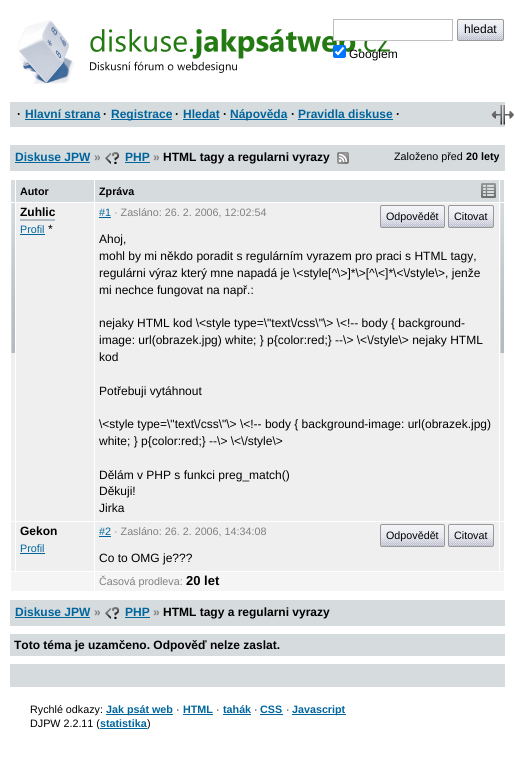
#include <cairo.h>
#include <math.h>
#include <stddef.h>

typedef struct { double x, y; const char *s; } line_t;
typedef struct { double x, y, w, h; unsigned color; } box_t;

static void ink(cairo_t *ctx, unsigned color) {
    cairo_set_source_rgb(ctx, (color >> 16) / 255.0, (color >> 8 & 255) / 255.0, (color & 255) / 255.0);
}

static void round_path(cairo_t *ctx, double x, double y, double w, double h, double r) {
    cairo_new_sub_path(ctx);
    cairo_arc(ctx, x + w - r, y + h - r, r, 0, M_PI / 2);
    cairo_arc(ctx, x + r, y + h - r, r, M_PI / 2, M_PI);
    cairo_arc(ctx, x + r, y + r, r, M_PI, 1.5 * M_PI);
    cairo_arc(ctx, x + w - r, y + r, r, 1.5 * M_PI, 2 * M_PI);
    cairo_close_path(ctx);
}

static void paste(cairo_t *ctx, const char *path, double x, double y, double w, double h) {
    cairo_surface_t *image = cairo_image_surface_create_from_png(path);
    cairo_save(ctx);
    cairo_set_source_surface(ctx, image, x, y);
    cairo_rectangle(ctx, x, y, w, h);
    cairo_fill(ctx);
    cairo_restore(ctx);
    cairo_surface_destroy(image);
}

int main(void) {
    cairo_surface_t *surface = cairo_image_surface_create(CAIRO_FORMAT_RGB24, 515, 781);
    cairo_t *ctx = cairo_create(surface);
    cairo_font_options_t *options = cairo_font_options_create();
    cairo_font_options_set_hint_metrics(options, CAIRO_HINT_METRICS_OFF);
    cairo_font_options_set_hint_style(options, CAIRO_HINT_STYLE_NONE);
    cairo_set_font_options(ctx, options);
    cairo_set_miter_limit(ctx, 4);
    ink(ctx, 0xFFFFFF);
    cairo_paint(ctx);
    paste(ctx, "media/1.png", 18, 20, 57, 64);
    paste(ctx, "media/2.png", 90, 29, 300, 44);
    ink(ctx, 0xFFFFFF);
    cairo_rectangle(ctx, 334, 29, 56, 11);
    cairo_fill(ctx);
    cairo_rectangle(ctx, 333.5, 19.5, 119, 21);
    ink(ctx, 0xC0C0C0);
    cairo_set_line_width(ctx, 1);
    cairo_stroke(ctx);
    ink(ctx, 0xD6DBDE);
    round_path(ctx, 458, 20, 45, 20, 1);
    cairo_fill(ctx);
    paste(ctx, "media/3.png", 458, 20, 45, 20);
    round_path(ctx, 457.5, 19.5, 46, 21, 1.5);
    ink(ctx, 0x999999);
    cairo_stroke(ctx);
    cairo_select_font_face(ctx, "Liberation Sans", CAIRO_FONT_SLANT_NORMAL, CAIRO_FONT_WEIGHT_NORMAL);
    cairo_set_font_size(ctx, 12);
    ink(ctx, 0x000000);
    cairo_move_to(ctx, 464, 33);
    cairo_show_text(ctx, "hledat");
    ink(ctx, 0x0075FF);
    round_path(ctx, 333, 45, 13, 13, 2);
    cairo_fill(ctx);
    cairo_new_path(ctx);
    cairo_move_to(ctx, 335.5, 51.5);
    cairo_line_to(ctx, 338, 54);
    cairo_line_to(ctx, 343.5, 47.5);
    ink(ctx, 0xFFFFFF);
    cairo_set_line_width(ctx, 2.1);
    cairo_stroke(ctx);
    ink(ctx, 0x000000);
    cairo_move_to(ctx, 349, 58);
    cairo_show_text(ctx, "Googlem");
    ink(ctx, 0xD6DBDE);
    cairo_rectangle(ctx, 10, 102, 495, 25);
    cairo_fill(ctx);
    cairo_select_font_face(ctx, "Liberation Sans", CAIRO_FONT_SLANT_NORMAL, CAIRO_FONT_WEIGHT_BOLD);
    ink(ctx, 0x000000);
    cairo_move_to(ctx, 17, 118);
    cairo_show_text(ctx, "·");
    ink(ctx, 0x00659C);
    cairo_move_to(ctx, 25, 118);
    cairo_show_text(ctx, "Hlavní strana");
    cairo_rectangle(ctx, 25, 119, 75, 1);
    cairo_fill(ctx);
    ink(ctx, 0x000000);
    cairo_move_to(ctx, 103, 118);
    cairo_show_text(ctx, "·");
    ink(ctx, 0x00659C);
    cairo_rectangle(ctx, 111, 119, 61, 1);
    cairo_fill(ctx);
    cairo_move_to(ctx, 111, 118);
    cairo_show_text(ctx, "Registrace");
    ink(ctx, 0x000000);
    cairo_move_to(ctx, 175, 118);
    cairo_show_text(ctx, "·");
    ink(ctx, 0x00659C);
    cairo_move_to(ctx, 183, 118);
    cairo_show_text(ctx, "Hledat");
    cairo_rectangle(ctx, 183, 119, 36, 1);
    cairo_fill(ctx);
    ink(ctx, 0x000000);
    cairo_move_to(ctx, 223, 118);
    cairo_show_text(ctx, "·");
    ink(ctx, 0x00659C);
    cairo_rectangle(ctx, 230, 119, 57, 1);
    cairo_fill(ctx);
    cairo_move_to(ctx, 230, 118);
    cairo_show_text(ctx, "Nápověda");
    ink(ctx, 0x000000);
    cairo_move_to(ctx, 291, 118);
    cairo_show_text(ctx, "·");
    ink(ctx, 0x00659C);
    cairo_move_to(ctx, 298, 118);
    cairo_show_text(ctx, "Pravidla diskuse");
    cairo_rectangle(ctx, 298, 119, 95, 1);
    cairo_fill(ctx);
    ink(ctx, 0x000000);
    cairo_move_to(ctx, 396, 118);
    cairo_show_text(ctx, "·");
    paste(ctx, "media/4.png", 491, 105, 23, 20);
    ink(ctx, 0xD6DBDE);
    cairo_rectangle(ctx, 10, 145, 495, 26);
    cairo_fill(ctx);
    ink(ctx, 0x00659C);
    cairo_move_to(ctx, 15, 161);
    cairo_show_text(ctx, "Diskuse JPW");
    cairo_rectangle(ctx, 15, 162, 75, 1);
    cairo_fill(ctx);
    ink(ctx, 0x808080);
    cairo_move_to(ctx, 94, 161);
    cairo_show_text(ctx, "»");
    paste(ctx, "media/5.png", 105, 152, 15, 13);
    ink(ctx, 0x00659C);
    cairo_move_to(ctx, 125, 161);
    cairo_show_text(ctx, "PHP");
    cairo_rectangle(ctx, 125, 162, 25, 1);
    cairo_fill(ctx);
    ink(ctx, 0x808080);
    cairo_move_to(ctx, 153, 161);
    cairo_show_text(ctx, "»");
    ink(ctx, 0x000000);
    cairo_move_to(ctx, 163, 161);
    cairo_show_text(ctx, "HTML tagy a regularni vyrazy");
    paste(ctx, "media/6.png", 337, 152, 12, 12);
    cairo_select_font_face(ctx, "Liberation Sans", CAIRO_FONT_SLANT_NORMAL, CAIRO_FONT_WEIGHT_NORMAL);
    cairo_set_font_size(ctx, 10.75);
    cairo_move_to(ctx, 394, 160);
    cairo_show_text(ctx, "Založeno před");
    cairo_select_font_face(ctx, "Liberation Sans", CAIRO_FONT_SLANT_NORMAL, CAIRO_FONT_WEIGHT_BOLD);
    cairo_move_to(ctx, 466, 160);
    cairo_show_text(ctx, "20 lety");
    ink(ctx, 0xD6DBDE);
    cairo_rectangle(ctx, 95, 180, 404, 22);
    cairo_fill(ctx);
    paste(ctx, "media/7.png", 481, 183, 15, 15);
    cairo_rectangle(ctx, 11, 180, 4, 22);
    cairo_fill(ctx);
    cairo_rectangle(ctx, 16, 180, 78, 22);
    cairo_fill(ctx);
    ink(ctx, 0x000000);
    cairo_move_to(ctx, 20, 195);
    cairo_show_text(ctx, "Autor");
    cairo_move_to(ctx, 99, 195);
    cairo_show_text(ctx, "Zpráva");
    ink(ctx, 0xD6DBDE);
    cairo_rectangle(ctx, 500, 180, 4, 22);
    cairo_fill(ctx);
    ink(ctx, 0xEFEFEF);
    cairo_rectangle(ctx, 16, 203, 483, 318);
    cairo_fill(ctx);
    paste(ctx, "media/8.png", 11, 203, 4, 318);
    cairo_set_font_size(ctx, 12);
    ink(ctx, 0x000000);
    cairo_move_to(ctx, 20, 216);
    cairo_show_text(ctx, "Zuhlic");
    ink(ctx, 0xB1BBC1);
    cairo_rectangle(ctx, 20, 219, 35, 2);
    cairo_fill(ctx);
    cairo_select_font_face(ctx, "Liberation Sans", CAIRO_FONT_SLANT_NORMAL, CAIRO_FONT_WEIGHT_NORMAL);
    cairo_set_font_size(ctx, 10.75);
    ink(ctx, 0x00659C);
    cairo_move_to(ctx, 20, 233);
    cairo_show_text(ctx, "Profil");
    cairo_rectangle(ctx, 20, 234, 25, 1);
    cairo_fill(ctx);
    cairo_set_font_size(ctx, 12);
    ink(ctx, 0x000000);
    cairo_move_to(ctx, 48, 233);
    cairo_show_text(ctx, "*");
    cairo_set_font_size(ctx, 10.75);
    ink(ctx, 0x00659C);
    cairo_move_to(ctx, 99, 216);
    cairo_show_text(ctx, "#1");
    cairo_rectangle(ctx, 99, 217, 12, 1);
    cairo_fill(ctx);
    ink(ctx, 0x808080);
    cairo_move_to(ctx, 114, 216);
    cairo_show_text(ctx, "· Zasláno: 26. 2. 2006, 12:02:54");
    ink(ctx, 0xD6DBDE);
    round_path(ctx, 381, 206, 63, 21, 1);
    cairo_fill(ctx);
    paste(ctx, "media/9.png", 381, 206, 63, 21);
    round_path(ctx, 380.5, 205.5, 64, 22, 1.5);
    ink(ctx, 0x999999);
    cairo_set_line_width(ctx, 1);
    cairo_stroke(ctx);
    ink(ctx, 0x000000);
    cairo_move_to(ctx, 386, 220);
    cairo_show_text(ctx, "Odpovědět");
    ink(ctx, 0xD6DBDE);
    round_path(ctx, 449, 206, 44, 21, 1);
    cairo_fill(ctx);
    paste(ctx, "media/10.png", 449, 206, 44, 21);
    round_path(ctx, 448.5, 205.5, 45, 22, 1.5);
    ink(ctx, 0x999999);
    cairo_stroke(ctx);
    ink(ctx, 0x000000);
    cairo_move_to(ctx, 454, 220);
    cairo_show_text(ctx, "Citovat");
    cairo_set_font_size(ctx, 12);
    {
        static const line_t items[] = {
            {99, 243, "Ahoj,"},
            {99, 260, "mohl by mi někdo poradit s regulárním vyrazem pro praci s HTML tagy,"},
            {99, 277, "regulárni výraz který mne napadá je \\<style[^\\>]*\\>[^\\<]*\\<\\/style\\>, jenže"},
            {99, 294, "mi nechce fungovat na např.:"},
            {99, 327, "nejaky HTML kod \\<style type=\\\"text\\/css\\\"\\> \\<!-- body { background-"},
            {99, 344, "image: url(obrazek.jpg) white; } p{color:red;} --\\> \\<\\/style\\> nejaky HTML"},
            {99, 361, "kod"},
            {99, 395, "Potřebuji vytáhnout"},
            {99, 428, "\\<style type=\\\"text\\/css\\\"\\> \\<!-- body { background-image: url(obrazek.jpg)"},
            {99, 445, "white; } p{color:red;} --\\> \\<\\/style\\>"},
            {99, 479, "Dělám v PHP s funkci preg_match()"},
            {99, 495, "Děkuji!"},
            {99, 512, "Jirka"},
        };
        for (size_t i = 0; i < sizeof items / sizeof *items; i++) {
            cairo_move_to(ctx, items[i].x, items[i].y);
            cairo_show_text(ctx, items[i].s);
        }
    }
    paste(ctx, "media/8.png", 500, 203, 4, 318);
    ink(ctx, 0xEFEFEF);
    cairo_rectangle(ctx, 11, 522, 493, 49);
    cairo_fill(ctx);
    ink(ctx, 0xFFFFFF);
    cairo_rectangle(ctx, 15, 521, 1, 51);
    cairo_fill(ctx);
    cairo_select_font_face(ctx, "Liberation Sans", CAIRO_FONT_SLANT_NORMAL, CAIRO_FONT_WEIGHT_BOLD);
    ink(ctx, 0x000000);
    cairo_move_to(ctx, 20, 535);
    cairo_show_text(ctx, "Gekon");
    cairo_select_font_face(ctx, "Liberation Sans", CAIRO_FONT_SLANT_NORMAL, CAIRO_FONT_WEIGHT_NORMAL);
    cairo_set_font_size(ctx, 10.75);
    ink(ctx, 0x00659C);
    cairo_move_to(ctx, 20, 552);
    cairo_show_text(ctx, "Profil");
    cairo_rectangle(ctx, 20, 553, 25, 1);
    cairo_fill(ctx);
    ink(ctx, 0xFFFFFF);
    cairo_rectangle(ctx, 94, 202, 1, 370);
    cairo_fill(ctx);
    ink(ctx, 0x00659C);
    cairo_move_to(ctx, 99, 535);
    cairo_show_text(ctx, "#2");
    cairo_rectangle(ctx, 99, 536, 12, 1);
    cairo_fill(ctx);
    ink(ctx, 0x808080);
    cairo_move_to(ctx, 114, 535);
    cairo_show_text(ctx, "· Zasláno: 26. 2. 2006, 14:34:08");
    ink(ctx, 0xD6DBDE);
    round_path(ctx, 381, 525, 63, 21, 1);
    cairo_fill(ctx);
    paste(ctx, "media/9.png", 381, 525, 63, 21);
    round_path(ctx, 380.5, 524.5, 64, 22, 1.5);
    ink(ctx, 0x999999);
    cairo_stroke(ctx);
    ink(ctx, 0x000000);
    cairo_move_to(ctx, 386, 539);
    cairo_show_text(ctx, "Odpovědět");
    ink(ctx, 0xD6DBDE);
    round_path(ctx, 449, 525, 44, 21, 1);
    cairo_fill(ctx);
    paste(ctx, "media/10.png", 449, 525, 44, 21);
    round_path(ctx, 448.5, 524.5, 45, 22, 1.5);
    ink(ctx, 0x999999);
    cairo_stroke(ctx);
    ink(ctx, 0x000000);
    cairo_move_to(ctx, 454, 539);
    cairo_show_text(ctx, "Citovat");
    cairo_set_font_size(ctx, 12);
    cairo_move_to(ctx, 99, 562);
    cairo_show_text(ctx, "Co to OMG je?\077?");
    {
        static const box_t items[] = {
            {499, 521, 1, 51, 0xFFFFFF},
            {11, 572, 83, 19, 0xF5F5F5},
            {95, 572, 409, 19, 0xF5F5F5},
        };
        for (size_t i = 0; i < sizeof items / sizeof *items; i++) {
            ink(ctx, items[i].color);
            cairo_rectangle(ctx, items[i].x, items[i].y, items[i].w, items[i].h);
            cairo_fill(ctx);
        }
    }
    cairo_set_font_size(ctx, 10.75);
    ink(ctx, 0x808080);
    cairo_move_to(ctx, 99, 585);
    cairo_show_text(ctx, "Časová prodleva:");
    cairo_select_font_face(ctx, "Liberation Sans", CAIRO_FONT_SLANT_NORMAL, CAIRO_FONT_WEIGHT_BOLD);
    cairo_set_font_size(ctx, 13);
    ink(ctx, 0x000000);
    cairo_move_to(ctx, 186, 585);
    cairo_show_text(ctx, "20 let");
    ink(ctx, 0xD6DBDE);
    cairo_rectangle(ctx, 10, 600, 495, 26);
    cairo_fill(ctx);
    cairo_set_font_size(ctx, 12);
    ink(ctx, 0x00659C);
    cairo_move_to(ctx, 15, 616);
    cairo_show_text(ctx, "Diskuse JPW");
    cairo_rectangle(ctx, 15, 617, 75, 1);
    cairo_fill(ctx);
    ink(ctx, 0x808080);
    cairo_move_to(ctx, 94, 616);
    cairo_show_text(ctx, "»");
    paste(ctx, "media/5.png", 105, 607, 15, 13);
    ink(ctx, 0x00659C);
    cairo_move_to(ctx, 125, 616);
    cairo_show_text(ctx, "PHP");
    cairo_rectangle(ctx, 125, 617, 25, 1);
    cairo_fill(ctx);
    ink(ctx, 0x808080);
    cairo_move_to(ctx, 153, 616);
    cairo_show_text(ctx, "»");
    ink(ctx, 0x000000);
    cairo_move_to(ctx, 163, 616);
    cairo_show_text(ctx, "HTML tagy a regularni vyrazy");
    ink(ctx, 0xD6DBDE);
    cairo_rectangle(ctx, 10, 634, 495, 22);
    cairo_fill(ctx);
    ink(ctx, 0x000000);
    cairo_move_to(ctx, 14, 649);
    cairo_show_text(ctx, "Toto téma je uzamčeno. Odpověď nelze zaslat.");
    ink(ctx, 0xD6DBDE);
    cairo_rectangle(ctx, 10, 664, 495, 23);
    cairo_fill(ctx);
    cairo_select_font_face(ctx, "Liberation Sans", CAIRO_FONT_SLANT_NORMAL, CAIRO_FONT_WEIGHT_NORMAL);
    cairo_set_font_size(ctx, 10.75);
    ink(ctx, 0x000000);
    cairo_move_to(ctx, 30, 713);
    cairo_show_text(ctx, "Rychlé odkazy:");
    ink(ctx, 0x00659C);
    cairo_rectangle(ctx, 106, 714, 67, 1);
    cairo_fill(ctx);
    cairo_select_font_face(ctx, "Liberation Sans", CAIRO_FONT_SLANT_NORMAL, CAIRO_FONT_WEIGHT_BOLD);
    cairo_move_to(ctx, 106, 713);
    cairo_show_text(ctx, "Jak psát web");
    cairo_select_font_face(ctx, "Liberation Sans", CAIRO_FONT_SLANT_NORMAL, CAIRO_FONT_WEIGHT_NORMAL);
    ink(ctx, 0x000000);
    cairo_move_to(ctx, 176, 713);
    cairo_show_text(ctx, "·");
    cairo_select_font_face(ctx, "Liberation Sans", CAIRO_FONT_SLANT_NORMAL, CAIRO_FONT_WEIGHT_BOLD);
    ink(ctx, 0x00659C);
    cairo_move_to(ctx, 183, 713);
    cairo_show_text(ctx, "HTML");
    cairo_rectangle(ctx, 183, 714, 30, 1);
    cairo_fill(ctx);
    cairo_select_font_face(ctx, "Liberation Sans", CAIRO_FONT_SLANT_NORMAL, CAIRO_FONT_WEIGHT_NORMAL);
    ink(ctx, 0x000000);
    cairo_move_to(ctx, 216, 713);
    cairo_show_text(ctx, "·");
    cairo_select_font_face(ctx, "Liberation Sans", CAIRO_FONT_SLANT_NORMAL, CAIRO_FONT_WEIGHT_BOLD);
    ink(ctx, 0x00659C);
    cairo_move_to(ctx, 223, 713);
    cairo_show_text(ctx, "tahák");
    cairo_rectangle(ctx, 223, 714, 28, 1);
    cairo_fill(ctx);
    cairo_select_font_face(ctx, "Liberation Sans", CAIRO_FONT_SLANT_NORMAL, CAIRO_FONT_WEIGHT_NORMAL);
    ink(ctx, 0x000000);
    cairo_move_to(ctx, 254, 713);
    cairo_show_text(ctx, "·");
    cairo_select_font_face(ctx, "Liberation Sans", CAIRO_FONT_SLANT_NORMAL, CAIRO_FONT_WEIGHT_BOLD);
    ink(ctx, 0x00659C);
    cairo_move_to(ctx, 260, 713);
    cairo_show_text(ctx, "CSS");
    cairo_rectangle(ctx, 260, 714, 23, 1);
    cairo_fill(ctx);
    cairo_select_font_face(ctx, "Liberation Sans", CAIRO_FONT_SLANT_NORMAL, CAIRO_FONT_WEIGHT_NORMAL);
    ink(ctx, 0x000000);
    cairo_move_to(ctx, 286, 713);
    cairo_show_text(ctx, "·");
    ink(ctx, 0x00659C);
    cairo_rectangle(ctx, 292, 714, 54, 1);
    cairo_fill(ctx);
    cairo_select_font_face(ctx, "Liberation Sans", CAIRO_FONT_SLANT_NORMAL, CAIRO_FONT_WEIGHT_BOLD);
    cairo_move_to(ctx, 292, 713);
    cairo_show_text(ctx, "Javascript");
    cairo_select_font_face(ctx, "Liberation Sans", CAIRO_FONT_SLANT_NORMAL, CAIRO_FONT_WEIGHT_NORMAL);
    ink(ctx, 0x000000);
    cairo_move_to(ctx, 30, 727);
    cairo_show_text(ctx, "DJPW 2.2.11 (");
    ink(ctx, 0x00659C);
    cairo_rectangle(ctx, 100, 728, 47, 1);
    cairo_fill(ctx);
    cairo_select_font_face(ctx, "Liberation Sans", CAIRO_FONT_SLANT_NORMAL, CAIRO_FONT_WEIGHT_BOLD);
    cairo_move_to(ctx, 100, 727);
    cairo_show_text(ctx, "statistika");
    cairo_select_font_face(ctx, "Liberation Sans", CAIRO_FONT_SLANT_NORMAL, CAIRO_FONT_WEIGHT_NORMAL);
    ink(ctx, 0x000000);
    cairo_move_to(ctx, 147, 727);
    cairo_show_text(ctx, ")");
    cairo_surface_write_to_png(surface, "image.png");
    cairo_font_options_destroy(options);
    cairo_destroy(ctx);
    cairo_surface_destroy(surface);
    return 0;
}
